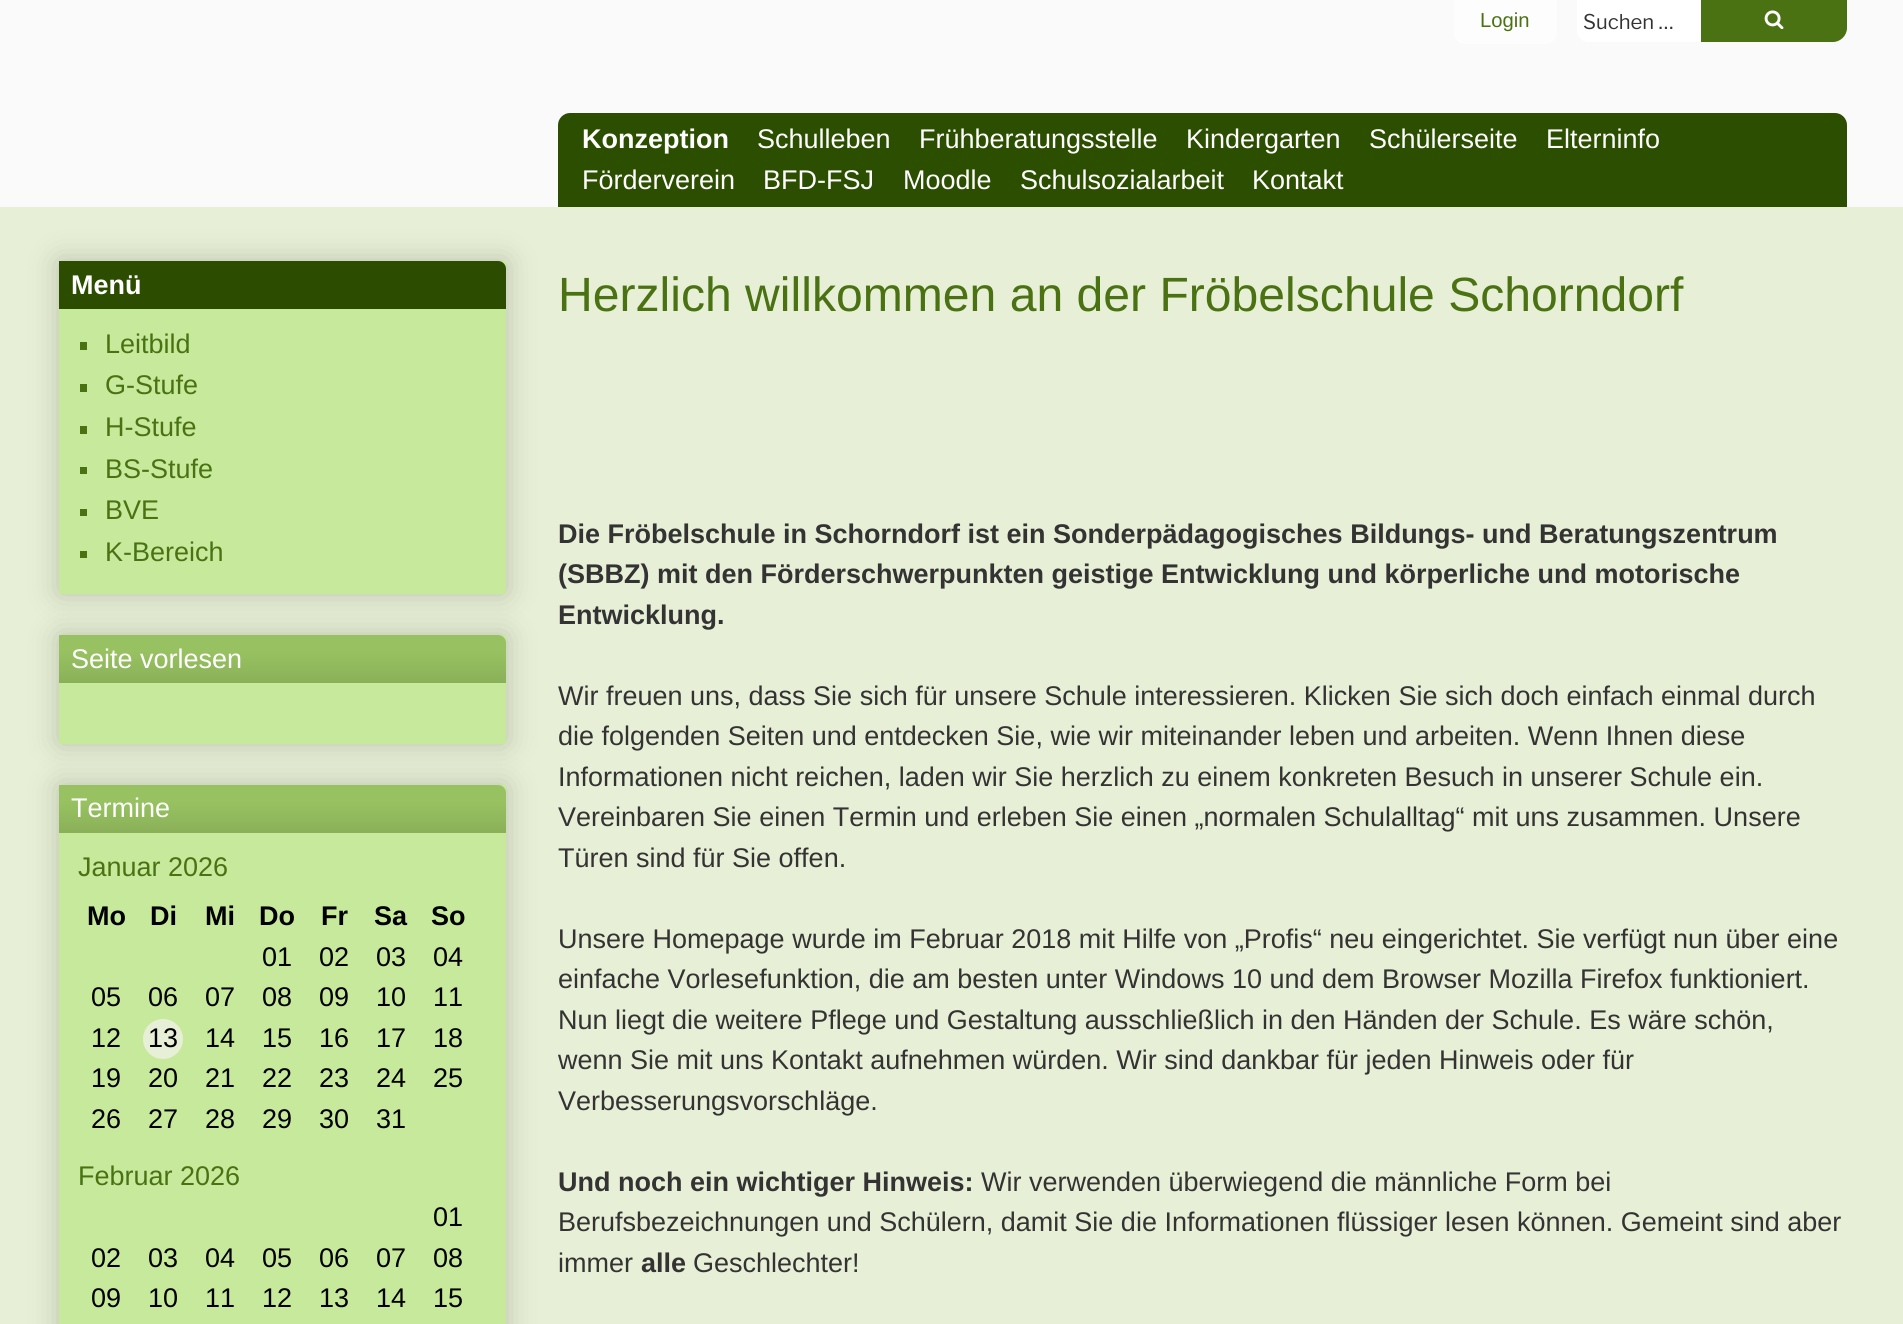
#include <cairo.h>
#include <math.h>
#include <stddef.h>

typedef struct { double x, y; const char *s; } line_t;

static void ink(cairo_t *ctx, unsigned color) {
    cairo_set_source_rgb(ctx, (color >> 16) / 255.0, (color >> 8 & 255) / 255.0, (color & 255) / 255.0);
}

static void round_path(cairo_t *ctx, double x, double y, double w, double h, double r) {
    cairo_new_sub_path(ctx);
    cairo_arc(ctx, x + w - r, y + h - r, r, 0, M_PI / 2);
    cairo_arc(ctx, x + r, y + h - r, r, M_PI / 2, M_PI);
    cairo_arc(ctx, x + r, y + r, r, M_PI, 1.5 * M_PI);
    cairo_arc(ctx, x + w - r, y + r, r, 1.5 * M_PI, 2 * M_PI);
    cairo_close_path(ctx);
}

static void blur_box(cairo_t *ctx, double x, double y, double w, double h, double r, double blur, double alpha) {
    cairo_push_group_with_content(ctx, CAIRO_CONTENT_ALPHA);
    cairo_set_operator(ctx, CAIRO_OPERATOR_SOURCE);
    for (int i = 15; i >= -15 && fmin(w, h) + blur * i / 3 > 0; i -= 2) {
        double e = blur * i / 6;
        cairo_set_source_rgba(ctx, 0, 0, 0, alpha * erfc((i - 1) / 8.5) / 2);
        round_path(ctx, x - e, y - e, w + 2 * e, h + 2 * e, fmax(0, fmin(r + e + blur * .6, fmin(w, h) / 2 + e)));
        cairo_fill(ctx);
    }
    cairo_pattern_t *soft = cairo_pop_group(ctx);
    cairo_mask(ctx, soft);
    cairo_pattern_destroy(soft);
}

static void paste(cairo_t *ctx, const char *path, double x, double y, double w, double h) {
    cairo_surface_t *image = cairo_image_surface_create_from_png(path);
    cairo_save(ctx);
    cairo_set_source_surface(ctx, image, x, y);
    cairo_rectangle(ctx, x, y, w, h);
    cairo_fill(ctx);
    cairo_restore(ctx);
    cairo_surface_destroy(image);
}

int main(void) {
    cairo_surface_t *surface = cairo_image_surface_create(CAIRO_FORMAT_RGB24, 1903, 1324);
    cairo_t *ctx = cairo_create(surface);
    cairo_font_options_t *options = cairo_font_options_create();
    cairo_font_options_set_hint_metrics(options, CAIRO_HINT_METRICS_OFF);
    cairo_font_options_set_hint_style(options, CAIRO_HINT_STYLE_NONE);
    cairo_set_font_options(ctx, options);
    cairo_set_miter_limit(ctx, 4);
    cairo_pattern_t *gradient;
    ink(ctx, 0xE7EFD6);
    cairo_paint(ctx);
    ink(ctx, 0xFAFAFA);
    cairo_rectangle(ctx, 0, 0, 1903, 207);
    cairo_fill(ctx);
    ink(ctx, 0xFDFDFD);
    cairo_new_path(ctx);
    cairo_move_to(ctx, 1454, 0);
    cairo_line_to(ctx, 1557, 0);
    cairo_line_to(ctx, 1557, 33);
    cairo_curve_to(ctx, 1557, 39, 1552, 44, 1546, 44);
    cairo_line_to(ctx, 1465, 44);
    cairo_curve_to(ctx, 1459, 44, 1454, 39, 1454, 33);
    cairo_close_path(ctx);
    cairo_fill(ctx);
    cairo_select_font_face(ctx, "Liberation Sans", CAIRO_FONT_SLANT_NORMAL, CAIRO_FONT_WEIGHT_NORMAL);
    cairo_set_font_size(ctx, 20.25);
    ink(ctx, 0x4A7213);
    cairo_move_to(ctx, 1480, 27);
    cairo_show_text(ctx, "Login");
    ink(ctx, 0xFFFFFF);
    cairo_new_path(ctx);
    cairo_move_to(ctx, 1577, 0);
    cairo_line_to(ctx, 1847, 0);
    cairo_line_to(ctx, 1847, 28);
    cairo_curve_to(ctx, 1847, 35.5, 1840.5, 42, 1833, 42);
    cairo_line_to(ctx, 1588, 42);
    cairo_curve_to(ctx, 1582, 42, 1577, 37, 1577, 31);
    cairo_close_path(ctx);
    cairo_fill(ctx);
    cairo_select_font_face(ctx, "Libre Franklin", CAIRO_FONT_SLANT_NORMAL, CAIRO_FONT_WEIGHT_NORMAL);
    ink(ctx, 0x333333);
    cairo_move_to(ctx, 1583, 29);
    cairo_show_text(ctx, "Suchen …");
    ink(ctx, 0x4A7213);
    cairo_new_path(ctx);
    cairo_move_to(ctx, 1701, 0);
    cairo_line_to(ctx, 1847, 0);
    cairo_line_to(ctx, 1847, 28);
    cairo_curve_to(ctx, 1847, 35.5, 1840.5, 42, 1833, 42);
    cairo_line_to(ctx, 1701, 42);
    cairo_close_path(ctx);
    cairo_fill(ctx);
    paste(ctx, "media/1.png", 1764, 10, 20, 19);
    ink(ctx, 0x2C4E00);
    cairo_new_path(ctx);
    cairo_move_to(ctx, 570, 113);
    cairo_line_to(ctx, 1835, 113);
    cairo_curve_to(ctx, 1841.5, 113, 1847, 118.5, 1847, 125);
    cairo_line_to(ctx, 1847, 207);
    cairo_line_to(ctx, 558, 207);
    cairo_line_to(ctx, 558, 125);
    cairo_curve_to(ctx, 558, 118.5, 563.5, 113, 570, 113);
    cairo_close_path(ctx);
    cairo_fill(ctx);
    cairo_select_font_face(ctx, "Liberation Sans", CAIRO_FONT_SLANT_NORMAL, CAIRO_FONT_WEIGHT_BOLD);
    cairo_set_font_size(ctx, 27);
    ink(ctx, 0xFFFFFF);
    cairo_move_to(ctx, 582, 148);
    cairo_show_text(ctx, "Konzeption");
    cairo_select_font_face(ctx, "Liberation Sans", CAIRO_FONT_SLANT_NORMAL, CAIRO_FONT_WEIGHT_NORMAL);
    {
        static const line_t items[] = {
            {757, 148, "Schulleben"},
            {919, 148, "Frühberatungsstelle"},
            {1186, 148, "Kindergarten"},
            {1369, 148, "Schülerseite"},
            {1546, 148, "Elterninfo"},
            {582, 189, "Förderverein"},
            {763, 189, "BFD-FSJ"},
            {903, 189, "Moodle"},
            {1020, 189, "Schulsozialarbeit"},
            {1252, 189, "Kontakt"},
        };
        for (size_t i = 0; i < sizeof items / sizeof *items; i++) {
            cairo_move_to(ctx, items[i].x, items[i].y);
            cairo_show_text(ctx, items[i].s);
        }
    }
    ink(ctx, 0x000000);
    blur_box(ctx, 59, 261, 447, 333, 0, 15, 0.2);
    ink(ctx, 0xC7E99B);
    cairo_rectangle(ctx, 59, 261, 447, 333);
    cairo_fill(ctx);
    ink(ctx, 0x2C4D00);
    cairo_new_path(ctx);
    cairo_move_to(ctx, 59, 261);
    cairo_line_to(ctx, 498, 261);
    cairo_curve_to(ctx, 502.5, 261, 506, 264.5, 506, 269);
    cairo_line_to(ctx, 506, 309);
    cairo_line_to(ctx, 59, 309);
    cairo_close_path(ctx);
    cairo_fill(ctx);
    cairo_select_font_face(ctx, "Liberation Sans", CAIRO_FONT_SLANT_NORMAL, CAIRO_FONT_WEIGHT_BOLD);
    ink(ctx, 0xFFFFFF);
    cairo_move_to(ctx, 71, 294);
    cairo_show_text(ctx, "Menü");
    ink(ctx, 0x4A7213);
    cairo_rectangle(ctx, 80, 342, 7, 8);
    cairo_fill(ctx);
    cairo_select_font_face(ctx, "Liberation Sans", CAIRO_FONT_SLANT_NORMAL, CAIRO_FONT_WEIGHT_NORMAL);
    cairo_move_to(ctx, 105, 353);
    cairo_show_text(ctx, "Leitbild");
    cairo_rectangle(ctx, 80, 384, 7, 8);
    cairo_fill(ctx);
    cairo_move_to(ctx, 105, 394);
    cairo_show_text(ctx, "G-Stufe");
    cairo_rectangle(ctx, 80, 426, 7, 8);
    cairo_fill(ctx);
    cairo_move_to(ctx, 105, 436);
    cairo_show_text(ctx, "H-Stufe");
    cairo_rectangle(ctx, 80, 467, 7, 7);
    cairo_fill(ctx);
    cairo_move_to(ctx, 105, 478);
    cairo_show_text(ctx, "BS-Stufe");
    cairo_rectangle(ctx, 80, 509, 7, 7);
    cairo_fill(ctx);
    cairo_move_to(ctx, 105, 519);
    cairo_show_text(ctx, "BVE");
    cairo_rectangle(ctx, 80, 551, 7, 7);
    cairo_fill(ctx);
    cairo_move_to(ctx, 105, 561);
    cairo_show_text(ctx, "K-Bereich");
    ink(ctx, 0x000000);
    blur_box(ctx, 59, 635, 447, 109, 0, 15, 0.2);
    ink(ctx, 0xC7E99B);
    cairo_rectangle(ctx, 59, 635, 447, 109);
    cairo_fill(ctx);
    gradient = cairo_pattern_create_linear(282, 635, 282, 683);
    cairo_pattern_add_color_stop_rgba(gradient, 0.34, 0.596, 0.761, 0.38, 1);
    cairo_pattern_add_color_stop_rgba(gradient, 1, 0.541, 0.69, 0.345, 1);
    cairo_set_source(ctx, gradient);
    cairo_pattern_destroy(gradient);
    cairo_new_path(ctx);
    cairo_move_to(ctx, 59, 635);
    cairo_line_to(ctx, 498, 635);
    cairo_curve_to(ctx, 502.5, 635, 506, 638.5, 506, 643);
    cairo_line_to(ctx, 506, 683);
    cairo_line_to(ctx, 59, 683);
    cairo_close_path(ctx);
    cairo_fill(ctx);
    ink(ctx, 0xFFFFFF);
    cairo_move_to(ctx, 71, 668);
    cairo_show_text(ctx, "Seite vorlesen");
    ink(ctx, 0x000000);
    blur_box(ctx, 59, 785, 447, 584, 0, 15, 0.2);
    ink(ctx, 0xC7E99B);
    cairo_rectangle(ctx, 59, 785, 447, 539);
    cairo_fill(ctx);
    gradient = cairo_pattern_create_linear(282, 785, 282, 833);
    cairo_pattern_add_color_stop_rgba(gradient, 0.34, 0.596, 0.761, 0.38, 1);
    cairo_pattern_add_color_stop_rgba(gradient, 1, 0.541, 0.69, 0.345, 1);
    cairo_set_source(ctx, gradient);
    cairo_pattern_destroy(gradient);
    cairo_new_path(ctx);
    cairo_move_to(ctx, 59, 785);
    cairo_line_to(ctx, 498, 785);
    cairo_curve_to(ctx, 502.5, 785, 506, 788.5, 506, 793);
    cairo_line_to(ctx, 506, 833);
    cairo_line_to(ctx, 59, 833);
    cairo_close_path(ctx);
    cairo_fill(ctx);
    ink(ctx, 0xFFFFFF);
    cairo_move_to(ctx, 71, 817);
    cairo_show_text(ctx, "Termine");
    ink(ctx, 0x4A7213);
    cairo_move_to(ctx, 78, 876);
    cairo_show_text(ctx, "Januar 2026");
    cairo_select_font_face(ctx, "Liberation Sans", CAIRO_FONT_SLANT_NORMAL, CAIRO_FONT_WEIGHT_BOLD);
    ink(ctx, 0x000000);
    {
        static const line_t items[] = {
            {87, 925, "Mo"},
            {150, 925, "Di"},
            {205, 925, "Mi"},
            {259, 925, "Do"},
            {321, 925, "Fr"},
            {374, 925, "Sa"},
            {431, 925, "So"},
        };
        for (size_t i = 0; i < sizeof items / sizeof *items; i++) {
            cairo_move_to(ctx, items[i].x, items[i].y);
            cairo_show_text(ctx, items[i].s);
        }
    }
    cairo_select_font_face(ctx, "Liberation Sans", CAIRO_FONT_SLANT_NORMAL, CAIRO_FONT_WEIGHT_NORMAL);
    {
        static const line_t items[] = {
            {262, 966, "01"},
            {319, 966, "02"},
            {376, 966, "03"},
            {433, 966, "04"},
            {91, 1006, "05"},
            {148, 1006, "06"},
            {205, 1006, "07"},
            {262, 1006, "08"},
            {319, 1006, "09"},
            {376, 1006, "10"},
            {433, 1006, "11"},
            {91, 1047, "12"},
        };
        for (size_t i = 0; i < sizeof items / sizeof *items; i++) {
            cairo_move_to(ctx, items[i].x, items[i].y);
            cairo_show_text(ctx, items[i].s);
        }
    }
    ink(ctx, 0xE7EFD6);
    cairo_new_path(ctx);
    cairo_arc(ctx, 163, 1039, 20, 0, 2 * M_PI);
    cairo_fill(ctx);
    ink(ctx, 0x000000);
    {
        static const line_t items[] = {
            {148, 1047, "13"},
            {205, 1047, "14"},
            {262, 1047, "15"},
            {319, 1047, "16"},
            {376, 1047, "17"},
            {433, 1047, "18"},
            {91, 1087, "19"},
            {148, 1087, "20"},
            {205, 1087, "21"},
            {262, 1087, "22"},
            {319, 1087, "23"},
            {376, 1087, "24"},
            {433, 1087, "25"},
            {91, 1128, "26"},
            {148, 1128, "27"},
            {205, 1128, "28"},
            {262, 1128, "29"},
            {319, 1128, "30"},
            {376, 1128, "31"},
        };
        for (size_t i = 0; i < sizeof items / sizeof *items; i++) {
            cairo_move_to(ctx, items[i].x, items[i].y);
            cairo_show_text(ctx, items[i].s);
        }
    }
    ink(ctx, 0x4A7213);
    cairo_move_to(ctx, 78, 1185);
    cairo_show_text(ctx, "Februar 2026");
    ink(ctx, 0x000000);
    {
        static const line_t items[] = {
            {433, 1226, "01"},
            {91, 1267, "02"},
            {148, 1267, "03"},
            {205, 1267, "04"},
            {262, 1267, "05"},
            {319, 1267, "06"},
            {376, 1267, "07"},
            {433, 1267, "08"},
            {91, 1307, "09"},
            {148, 1307, "10"},
            {205, 1307, "11"},
            {262, 1307, "12"},
            {319, 1307, "13"},
            {376, 1307, "14"},
            {433, 1307, "15"},
        };
        for (size_t i = 0; i < sizeof items / sizeof *items; i++) {
            cairo_move_to(ctx, items[i].x, items[i].y);
            cairo_show_text(ctx, items[i].s);
        }
    }
    cairo_set_font_size(ctx, 48.1);
    ink(ctx, 0x4A7213);
    cairo_move_to(ctx, 558, 311);
    cairo_show_text(ctx, "Herzlich willkommen an der Fröbelschule Schorndorf");
    cairo_select_font_face(ctx, "Liberation Sans", CAIRO_FONT_SLANT_NORMAL, CAIRO_FONT_WEIGHT_BOLD);
    cairo_set_font_size(ctx, 27);
    ink(ctx, 0x333333);
    {
        static const line_t items[] = {
            {558, 543, "Die Fröbelschule in Schorndorf ist ein Sonderpädagogisches Bildungs- und Beratungszentrum"},
            {558, 583, "(SBBZ) mit den Förderschwerpunkten geistige Entwicklung und körperliche und motorische"},
            {558, 624, "Entwicklung."},
        };
        for (size_t i = 0; i < sizeof items / sizeof *items; i++) {
            cairo_move_to(ctx, items[i].x, items[i].y);
            cairo_show_text(ctx, items[i].s);
        }
    }
    cairo_select_font_face(ctx, "Liberation Sans", CAIRO_FONT_SLANT_NORMAL, CAIRO_FONT_WEIGHT_NORMAL);
    {
        static const line_t items[] = {
            {558, 705, "Wir freuen uns, dass Sie sich für unsere Schule interessieren. Klicken Sie sich doch einfach einmal durch"},
            {558, 745, "die folgenden Seiten und entdecken Sie, wie wir miteinander leben und arbeiten. Wenn Ihnen diese"},
            {558, 786, "Informationen nicht reichen, laden wir Sie herzlich zu einem konkreten Besuch in unserer Schule ein."},
            {558, 826, "Vereinbaren Sie einen Termin und erleben Sie einen „normalen Schulalltag“ mit uns zusammen. Unsere"},
            {558, 867, "Türen sind für Sie offen."},
            {558, 948, "Unsere Homepage wurde im Februar 2018 mit Hilfe von „Profis“ neu eingerichtet. Sie verfügt nun über eine"},
            {558, 988, "einfache Vorlesefunktion, die am besten unter Windows 10 und dem Browser Mozilla Firefox funktioniert."},
            {558, 1029, "Nun liegt die weitere Pflege und Gestaltung ausschließlich in den Händen der Schule. Es wäre schön,"},
            {558, 1069, "wenn Sie mit uns Kontakt aufnehmen würden. Wir sind dankbar für jeden Hinweis oder für"},
            {558, 1110, "Verbesserungsvorschläge."},
        };
        for (size_t i = 0; i < sizeof items / sizeof *items; i++) {
            cairo_move_to(ctx, items[i].x, items[i].y);
            cairo_show_text(ctx, items[i].s);
        }
    }
    cairo_select_font_face(ctx, "Liberation Sans", CAIRO_FONT_SLANT_NORMAL, CAIRO_FONT_WEIGHT_BOLD);
    cairo_move_to(ctx, 558, 1191);
    cairo_show_text(ctx, "Und noch ein wichtiger Hinweis:");
    cairo_select_font_face(ctx, "Liberation Sans", CAIRO_FONT_SLANT_NORMAL, CAIRO_FONT_WEIGHT_NORMAL);
    {
        static const line_t items[] = {
            {981, 1191, "Wir verwenden überwiegend die männliche Form bei"},
            {558, 1231, "Berufsbezeichnungen und Schülern, damit Sie die Informationen flüssiger lesen können. Gemeint sind aber"},
            {558, 1272, "immer"},
        };
        for (size_t i = 0; i < sizeof items / sizeof *items; i++) {
            cairo_move_to(ctx, items[i].x, items[i].y);
            cairo_show_text(ctx, items[i].s);
        }
    }
    cairo_select_font_face(ctx, "Liberation Sans", CAIRO_FONT_SLANT_NORMAL, CAIRO_FONT_WEIGHT_BOLD);
    cairo_move_to(ctx, 641, 1272);
    cairo_show_text(ctx, "alle");
    cairo_select_font_face(ctx, "Liberation Sans", CAIRO_FONT_SLANT_NORMAL, CAIRO_FONT_WEIGHT_NORMAL);
    cairo_move_to(ctx, 693, 1272);
    cairo_show_text(ctx, "Geschlechter!");
    cairo_surface_write_to_png(surface, "image.png");
    cairo_font_options_destroy(options);
    cairo_destroy(ctx);
    cairo_surface_destroy(surface);
    return 0;
}
